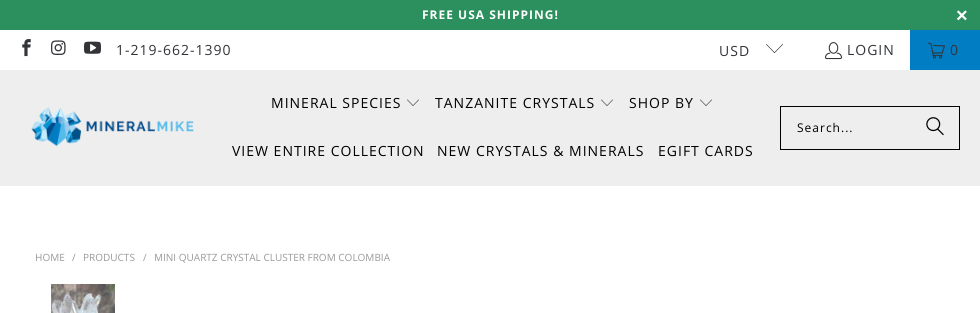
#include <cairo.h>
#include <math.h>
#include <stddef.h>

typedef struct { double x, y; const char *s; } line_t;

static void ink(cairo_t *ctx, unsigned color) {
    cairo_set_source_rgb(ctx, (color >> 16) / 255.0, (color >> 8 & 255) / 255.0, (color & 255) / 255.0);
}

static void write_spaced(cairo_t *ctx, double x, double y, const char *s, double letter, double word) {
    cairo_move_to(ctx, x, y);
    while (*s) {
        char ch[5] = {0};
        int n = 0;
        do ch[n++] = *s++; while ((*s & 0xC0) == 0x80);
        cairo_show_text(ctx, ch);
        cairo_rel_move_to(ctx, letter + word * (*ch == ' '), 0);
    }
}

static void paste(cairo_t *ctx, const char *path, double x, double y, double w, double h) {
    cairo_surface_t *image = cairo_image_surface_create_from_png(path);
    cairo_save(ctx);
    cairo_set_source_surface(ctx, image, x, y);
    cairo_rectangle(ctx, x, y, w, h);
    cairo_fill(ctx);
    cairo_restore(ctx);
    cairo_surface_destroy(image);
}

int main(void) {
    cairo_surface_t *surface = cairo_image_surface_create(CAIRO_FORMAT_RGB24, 980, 313);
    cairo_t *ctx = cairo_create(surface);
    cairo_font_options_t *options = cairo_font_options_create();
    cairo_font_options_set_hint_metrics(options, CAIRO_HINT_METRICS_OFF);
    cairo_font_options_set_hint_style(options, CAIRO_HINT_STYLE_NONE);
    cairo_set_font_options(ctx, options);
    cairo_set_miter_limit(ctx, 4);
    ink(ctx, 0xFFFFFF);
    cairo_paint(ctx);
    ink(ctx, 0x2B905D);
    cairo_rectangle(ctx, 0, 0, 980, 30);
    cairo_fill(ctx);
    cairo_select_font_face(ctx, "Open Sans", CAIRO_FONT_SLANT_NORMAL, CAIRO_FONT_WEIGHT_BOLD);
    cairo_set_font_size(ctx, 12);
    ink(ctx, 0xFFFFFF);
    write_spaced(ctx, 422, 19, "FREE USA SHIPPING!", 1, 0);
    cairo_select_font_face(ctx, "Liberation Sans", CAIRO_FONT_SLANT_NORMAL, CAIRO_FONT_WEIGHT_BOLD);
    cairo_set_font_size(ctx, 20);
    write_spaced(ctx, 956, 22, "×", 1, 0);
    paste(ctx, "media/1.png", 22, 39, 9, 18);
    paste(ctx, "media/2.png", 51, 40, 15, 15);
    paste(ctx, "media/3.png", 84, 41, 17, 13);
    cairo_select_font_face(ctx, "Open Sans", CAIRO_FONT_SLANT_NORMAL, CAIRO_FONT_WEIGHT_NORMAL);
    cairo_set_font_size(ctx, 14);
    ink(ctx, 0x333438);
    write_spaced(ctx, 116, 55, "1-219-662-1390", 1, 0);
    write_spaced(ctx, 719, 56, "USD", 1, 0);
    paste(ctx, "media/4.png", 766, 44, 17, 10);
    paste(ctx, "media/5.png", 825, 42, 17, 18);
    write_spaced(ctx, 847, 55, "LOGIN", 1, 0);
    ink(ctx, 0x007DC3);
    cairo_rectangle(ctx, 910, 30, 70, 40);
    cairo_fill(ctx);
    paste(ctx, "media/6.png", 928, 42, 17, 17);
    ink(ctx, 0x333438);
    write_spaced(ctx, 950, 55, "0", 1, 0);
    ink(ctx, 0xEFEEEE);
    cairo_rectangle(ctx, 0, 70, 980, 116);
    cairo_fill(ctx);
    paste(ctx, "media/7.png", 31, 107, 163, 40);
    ink(ctx, 0x000000);
    write_spaced(ctx, 271, 108, "MINERAL SPECIES", 1, 0);
    paste(ctx, "media/8.png", 407, 99, 12, 7);
    write_spaced(ctx, 435, 108, "TANZANITE CRYSTALS", 1, 0);
    paste(ctx, "media/8.png", 601, 99, 12, 7);
    write_spaced(ctx, 629, 108, "SHOP BY", 1, 0);
    paste(ctx, "media/8.png", 700, 99, 12, 7);
    {
        static const line_t items[] = {
            {232, 156, "VIEW ENTIRE COLLECTION"},
            {437, 156, "NEW CRYSTALS & MINERALS"},
            {658, 156, "EGIFT CARDS"},
        };
        for (size_t i = 0; i < sizeof items / sizeof *items; i++) {
            write_spaced(ctx, items[i].x, items[i].y, items[i].s, 1, 0);
        }
    }
    cairo_rectangle(ctx, 780.5, 106.5, 179, 43);
    cairo_set_line_width(ctx, 1);
    cairo_stroke(ctx);
    cairo_set_font_size(ctx, 12);
    write_spaced(ctx, 797, 132, "Search...", 1, 0);
    paste(ctx, "media/9.png", 926, 117, 18, 19);
    cairo_set_font_size(ctx, 10);
    ink(ctx, 0x999999);
    {
        static const line_t items[] = {
            {35, 261, "HOME"},
            {72, 261, "/"},
            {83, 261, "PRODUCTS"},
            {143, 261, "/"},
            {154, 261, "MINI QUARTZ CRYSTAL CLUSTER FROM COLOMBIA"},
        };
        for (size_t i = 0; i < sizeof items / sizeof *items; i++) {
            cairo_move_to(ctx, items[i].x, items[i].y);
            cairo_show_text(ctx, items[i].s);
        }
    }
    paste(ctx, "media/10.png", 51, 284, 64, 29);
    cairo_surface_write_to_png(surface, "image.png");
    cairo_font_options_destroy(options);
    cairo_destroy(ctx);
    cairo_surface_destroy(surface);
    return 0;
}
